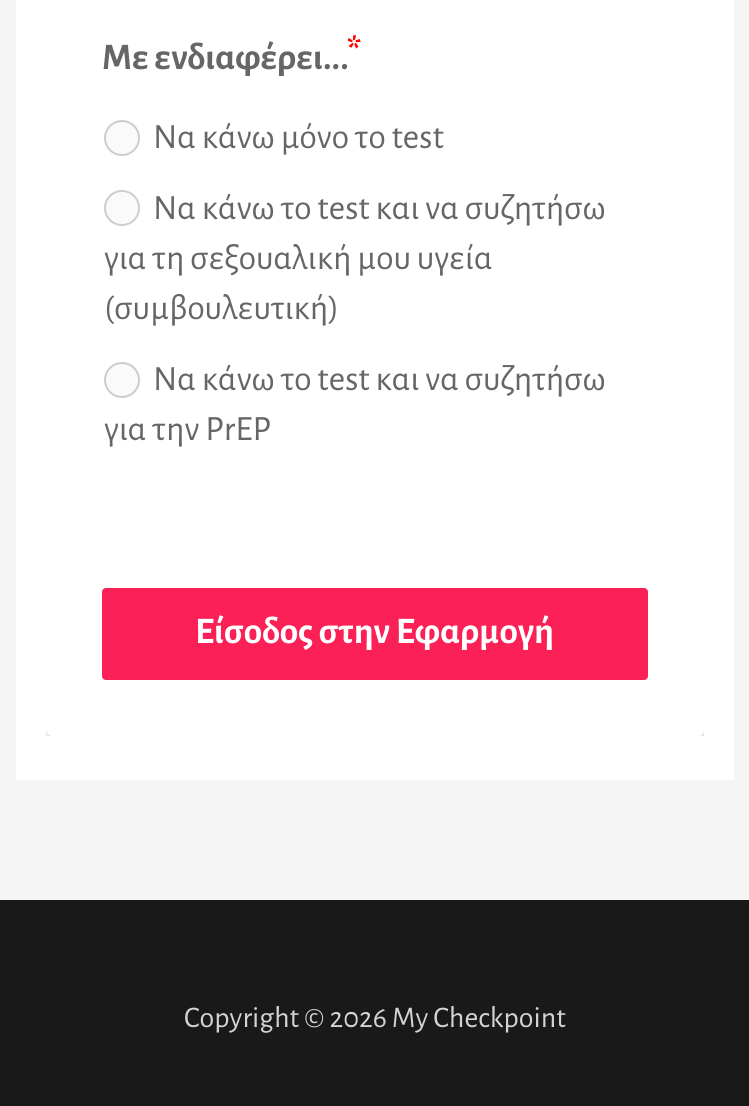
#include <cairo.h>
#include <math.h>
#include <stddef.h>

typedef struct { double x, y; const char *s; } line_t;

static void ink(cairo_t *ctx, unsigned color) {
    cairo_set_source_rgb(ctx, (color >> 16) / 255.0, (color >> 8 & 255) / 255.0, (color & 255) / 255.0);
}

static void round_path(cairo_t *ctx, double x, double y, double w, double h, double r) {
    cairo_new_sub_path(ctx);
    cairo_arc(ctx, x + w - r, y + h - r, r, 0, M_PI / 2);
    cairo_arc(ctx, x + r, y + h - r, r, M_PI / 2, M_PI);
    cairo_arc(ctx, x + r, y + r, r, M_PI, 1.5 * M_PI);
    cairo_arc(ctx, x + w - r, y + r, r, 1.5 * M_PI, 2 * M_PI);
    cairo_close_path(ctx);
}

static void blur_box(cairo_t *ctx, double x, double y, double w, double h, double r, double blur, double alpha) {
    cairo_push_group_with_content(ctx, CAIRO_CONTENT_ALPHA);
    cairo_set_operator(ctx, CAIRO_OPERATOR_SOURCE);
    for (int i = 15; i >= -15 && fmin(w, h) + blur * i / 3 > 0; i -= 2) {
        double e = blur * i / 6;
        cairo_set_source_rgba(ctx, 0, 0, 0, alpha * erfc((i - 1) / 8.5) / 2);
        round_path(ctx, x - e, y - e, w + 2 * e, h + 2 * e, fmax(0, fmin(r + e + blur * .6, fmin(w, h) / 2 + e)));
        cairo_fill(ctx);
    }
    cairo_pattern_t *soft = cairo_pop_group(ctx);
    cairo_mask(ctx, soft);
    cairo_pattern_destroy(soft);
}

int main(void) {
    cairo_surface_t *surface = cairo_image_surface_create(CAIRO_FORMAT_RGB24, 749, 1106);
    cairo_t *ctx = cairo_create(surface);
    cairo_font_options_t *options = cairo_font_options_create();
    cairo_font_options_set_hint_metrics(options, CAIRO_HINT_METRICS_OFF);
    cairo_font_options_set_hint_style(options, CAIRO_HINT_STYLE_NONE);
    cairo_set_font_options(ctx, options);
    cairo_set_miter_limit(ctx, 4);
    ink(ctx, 0xF5F5F5);
    cairo_paint(ctx);
    ink(ctx, 0xFFFFFF);
    cairo_rectangle(ctx, 16, 0, 718, 780);
    cairo_fill(ctx);
    cairo_save(ctx);
    cairo_rectangle(ctx, 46, 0, 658, 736);
    cairo_clip(ctx);
    ink(ctx, 0x32375A);
    blur_box(ctx, 46, -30, 658, 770, 6, 8, 0.2);
    cairo_restore(ctx);
    cairo_save(ctx);
    cairo_rectangle(ctx, 46, 0, 658, 736);
    cairo_clip(ctx);
    round_path(ctx, 46.5, -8.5, 659, 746, 7.5);
    cairo_set_source_rgba(ctx, 0, 0.078, 0.157, 0.1);
    cairo_set_line_width(ctx, 1);
    cairo_stroke(ctx);
    cairo_restore(ctx);
    round_path(ctx, 46, -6, 658, 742, 6);
    cairo_fill(ctx);
    cairo_select_font_face(ctx, "Alegreya Sans", CAIRO_FONT_SLANT_NORMAL, CAIRO_FONT_WEIGHT_BOLD);
    cairo_set_font_size(ctx, 37.5);
    ink(ctx, 0x666666);
    cairo_move_to(ctx, 102, 69);
    cairo_show_text(ctx, "Με ενδιαφέρει...");
    ink(ctx, 0xFF0000);
    cairo_move_to(ctx, 347, 63);
    cairo_show_text(ctx, "*");
    ink(ctx, 0xFAFAFA);
    cairo_new_path(ctx);
    cairo_arc(ctx, 122, 138, 17, 0, 2 * M_PI);
    cairo_fill_preserve(ctx);
    ink(ctx, 0xCBCECF);
    cairo_stroke(ctx);
    cairo_select_font_face(ctx, "Alegreya Sans", CAIRO_FONT_SLANT_NORMAL, CAIRO_FONT_WEIGHT_NORMAL);
    cairo_set_font_size(ctx, 35.6);
    ink(ctx, 0x666666);
    cairo_move_to(ctx, 153, 148);
    cairo_show_text(ctx, "Να κάνω μόνο το test");
    ink(ctx, 0xFAFAFA);
    cairo_new_path(ctx);
    cairo_arc(ctx, 122, 208, 17, 0, 2 * M_PI);
    cairo_fill_preserve(ctx);
    ink(ctx, 0xCBCECF);
    cairo_stroke(ctx);
    ink(ctx, 0x666666);
    {
        static const line_t items[] = {
            {153, 219, "Να κάνω το test και να συζητήσω"},
            {104, 269, "για τη σεξουαλική μου υγεία"},
            {104, 319, "(συμβουλευτική)"},
        };
        for (size_t i = 0; i < sizeof items / sizeof *items; i++) {
            cairo_move_to(ctx, items[i].x, items[i].y);
            cairo_show_text(ctx, items[i].s);
        }
    }
    ink(ctx, 0xFAFAFA);
    cairo_new_path(ctx);
    cairo_arc(ctx, 122, 380, 17, 0, 2 * M_PI);
    cairo_fill_preserve(ctx);
    ink(ctx, 0xCBCECF);
    cairo_stroke(ctx);
    ink(ctx, 0x666666);
    cairo_move_to(ctx, 153, 390);
    cairo_show_text(ctx, "Να κάνω το test και να συζητήσω");
    cairo_move_to(ctx, 104, 440);
    cairo_show_text(ctx, "για την PrEP");
    ink(ctx, 0xFB2056);
    round_path(ctx, 102, 588, 546, 92, 4);
    cairo_fill(ctx);
    cairo_select_font_face(ctx, "Alegreya Sans", CAIRO_FONT_SLANT_NORMAL, CAIRO_FONT_WEIGHT_BOLD);
    cairo_set_font_size(ctx, 37.5);
    ink(ctx, 0xFFFFFF);
    cairo_move_to(ctx, 195, 643);
    cairo_show_text(ctx, "Είσοδος στην Εφαρμογή");
    ink(ctx, 0x191919);
    cairo_rectangle(ctx, 0, 900, 749, 206);
    cairo_fill(ctx);
    cairo_select_font_face(ctx, "Alegreya Sans", CAIRO_FONT_SLANT_NORMAL, CAIRO_FONT_WEIGHT_NORMAL);
    cairo_set_font_size(ctx, 30);
    ink(ctx, 0xD3D3D3);
    cairo_move_to(ctx, 184, 1027);
    cairo_show_text(ctx, "Copyright © 2026 My Checkpoint");
    cairo_surface_write_to_png(surface, "image.png");
    cairo_font_options_destroy(options);
    cairo_destroy(ctx);
    cairo_surface_destroy(surface);
    return 0;
}
